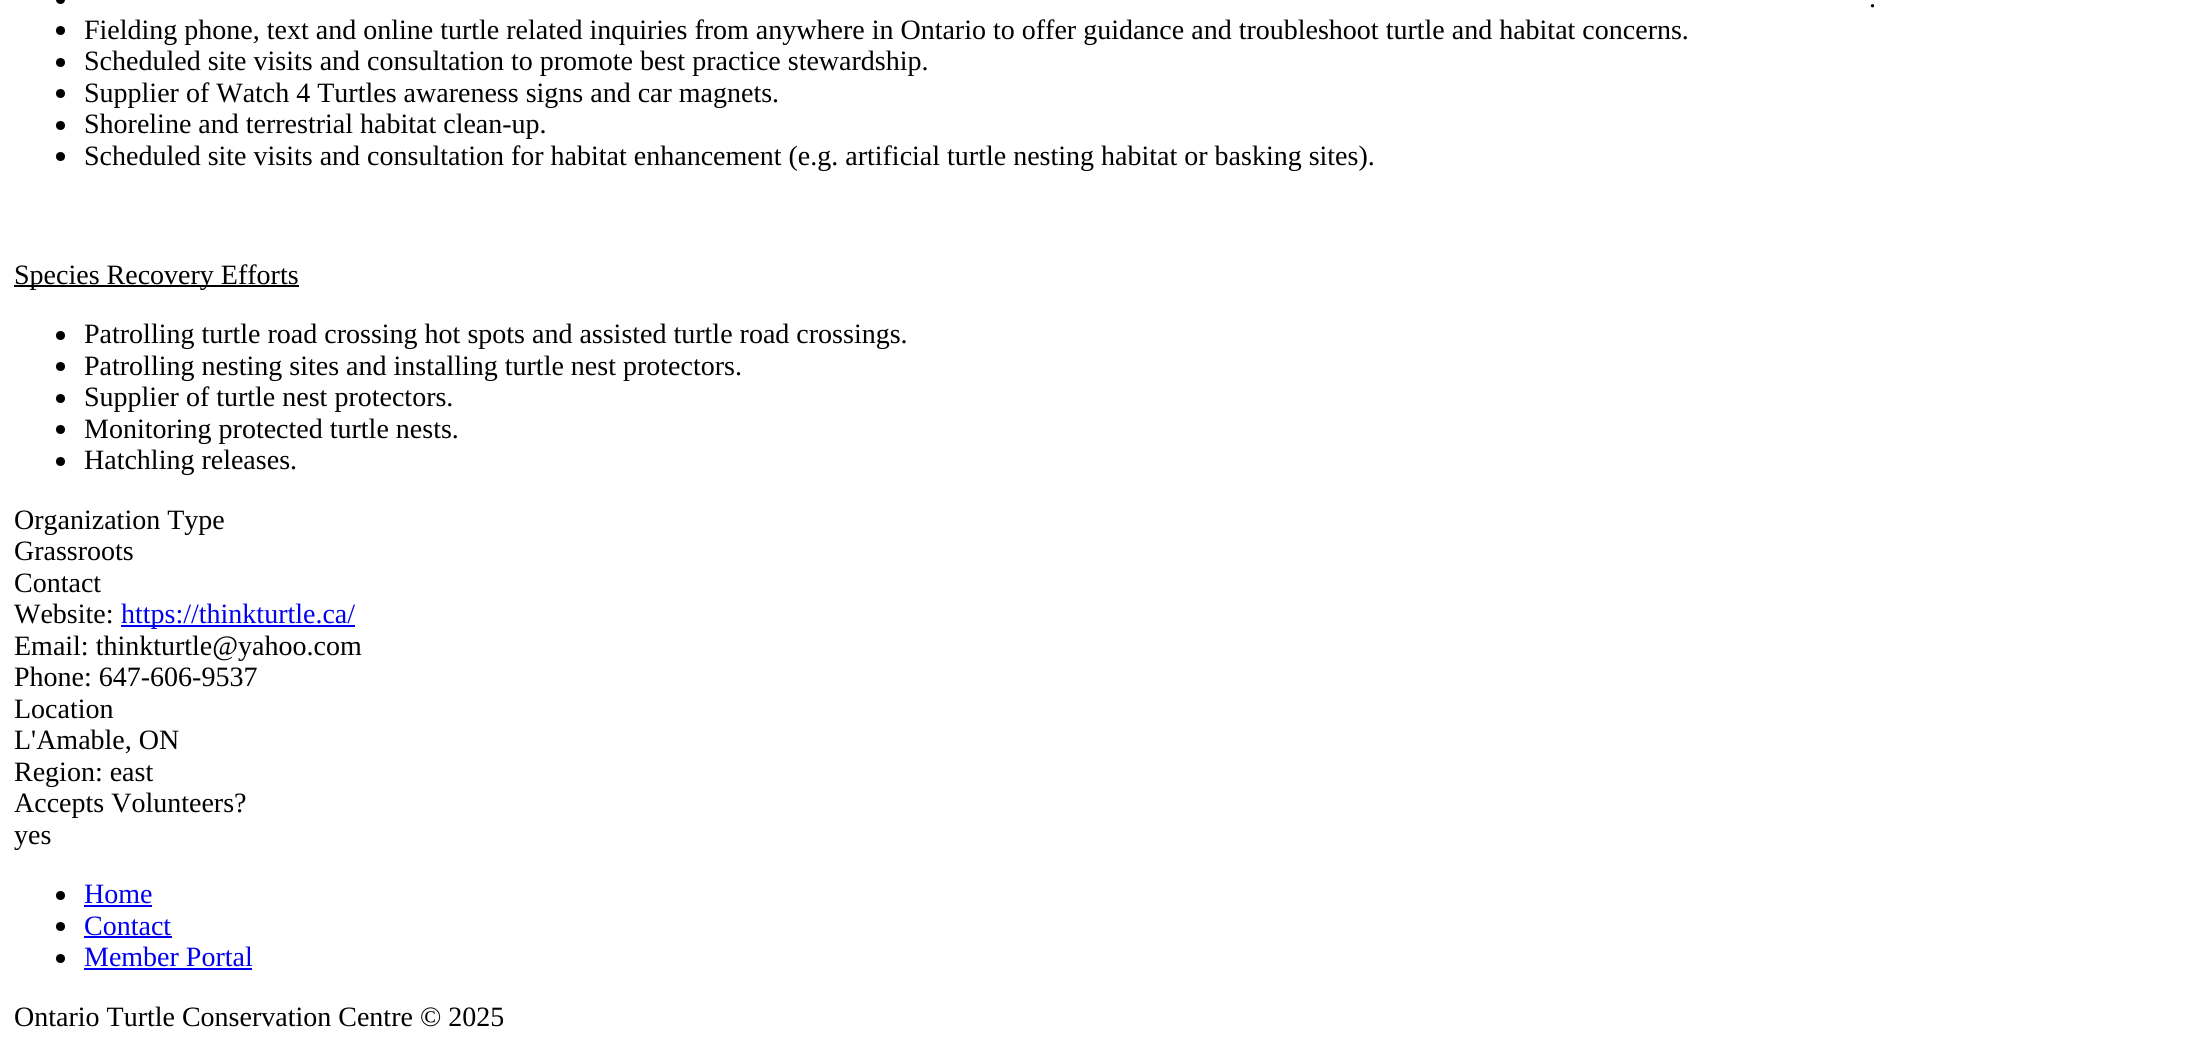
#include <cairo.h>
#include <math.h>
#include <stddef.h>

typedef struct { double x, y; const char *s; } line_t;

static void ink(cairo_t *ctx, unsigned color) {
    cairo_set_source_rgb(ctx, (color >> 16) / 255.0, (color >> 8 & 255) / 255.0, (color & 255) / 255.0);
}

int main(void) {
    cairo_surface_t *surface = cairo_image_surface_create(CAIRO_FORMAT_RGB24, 2205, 1045);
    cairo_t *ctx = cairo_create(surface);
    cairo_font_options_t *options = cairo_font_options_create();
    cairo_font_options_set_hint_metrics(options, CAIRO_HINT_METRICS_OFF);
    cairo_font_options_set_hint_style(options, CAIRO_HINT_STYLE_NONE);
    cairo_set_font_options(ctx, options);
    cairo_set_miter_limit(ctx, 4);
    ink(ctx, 0xFFFFFF);
    cairo_paint(ctx);
    ink(ctx, 0x000000);
    cairo_arc(ctx, 60.5, -0.5, 4.5, 0, 2 * M_PI);
    cairo_fill(ctx);
    cairo_select_font_face(ctx, "Liberation Serif", CAIRO_FONT_SLANT_NORMAL, CAIRO_FONT_WEIGHT_NORMAL);
    cairo_set_font_size(ctx, 28);
    cairo_move_to(ctx, 1869, 7);
    cairo_show_text(ctx, ".");
    cairo_new_path(ctx);
    cairo_arc(ctx, 60.5, 30.5, 4.5, 0, 2 * M_PI);
    cairo_fill(ctx);
    cairo_move_to(ctx, 84, 39);
    cairo_show_text(ctx, "Fielding phone, text and online turtle related inquiries from anywhere in Ontario to offer guidance and troubleshoot turtle and habitat concerns.");
    cairo_new_path(ctx);
    cairo_arc(ctx, 60.5, 62.5, 4.5, 0, 2 * M_PI);
    cairo_fill(ctx);
    cairo_move_to(ctx, 84, 70);
    cairo_show_text(ctx, "Scheduled site visits and consultation to promote best practice stewardship.");
    cairo_new_path(ctx);
    cairo_arc(ctx, 60.5, 93.5, 4.5, 0, 2 * M_PI);
    cairo_fill(ctx);
    cairo_move_to(ctx, 84, 102);
    cairo_show_text(ctx, "Supplier of Watch 4 Turtles awareness signs and car magnets.");
    cairo_new_path(ctx);
    cairo_arc(ctx, 60.5, 125.5, 4.5, 0, 2 * M_PI);
    cairo_fill(ctx);
    cairo_move_to(ctx, 84, 133);
    cairo_show_text(ctx, "Shoreline and terrestrial habitat clean-up.");
    cairo_new_path(ctx);
    cairo_arc(ctx, 60.5, 156.5, 4.5, 0, 2 * M_PI);
    cairo_fill(ctx);
    cairo_move_to(ctx, 84, 165);
    cairo_show_text(ctx, "Scheduled site visits and consultation for habitat enhancement (e.g. artificial turtle nesting habitat or basking sites).");
    cairo_rectangle(ctx, 14, 285, 285, 2);
    cairo_fill(ctx);
    cairo_move_to(ctx, 14, 284);
    cairo_show_text(ctx, "Species Recovery Efforts");
    cairo_new_path(ctx);
    cairo_arc(ctx, 60.5, 335.5, 4.5, 0, 2 * M_PI);
    cairo_fill(ctx);
    cairo_move_to(ctx, 84, 343);
    cairo_show_text(ctx, "Patrolling turtle road crossing hot spots and assisted turtle road crossings.");
    cairo_new_path(ctx);
    cairo_arc(ctx, 60.5, 366.5, 4.5, 0, 2 * M_PI);
    cairo_fill(ctx);
    cairo_move_to(ctx, 84, 375);
    cairo_show_text(ctx, "Patrolling nesting sites and installing turtle nest protectors.");
    cairo_new_path(ctx);
    cairo_arc(ctx, 60.5, 398.5, 4.5, 0, 2 * M_PI);
    cairo_fill(ctx);
    cairo_move_to(ctx, 84, 406);
    cairo_show_text(ctx, "Supplier of turtle nest protectors.");
    cairo_new_path(ctx);
    cairo_arc(ctx, 60.5, 429.5, 4.5, 0, 2 * M_PI);
    cairo_fill(ctx);
    cairo_move_to(ctx, 84, 438);
    cairo_show_text(ctx, "Monitoring protected turtle nests.");
    cairo_new_path(ctx);
    cairo_arc(ctx, 60.5, 461.5, 4.5, 0, 2 * M_PI);
    cairo_fill(ctx);
    {
        static const line_t items[] = {
            {84, 469, "Hatchling releases."},
            {14, 529, "Organization Type"},
            {14, 560, "Grassroots"},
            {14, 592, "Contact"},
            {14, 623, "Website:"},
        };
        for (size_t i = 0; i < sizeof items / sizeof *items; i++) {
            cairo_move_to(ctx, items[i].x, items[i].y);
            cairo_show_text(ctx, items[i].s);
        }
    }
    ink(ctx, 0x0000EE);
    cairo_rectangle(ctx, 121, 625, 234, 2);
    cairo_fill(ctx);
    cairo_move_to(ctx, 121, 623);
    cairo_show_text(ctx, "https://thinkturtle.ca/");
    ink(ctx, 0x000000);
    {
        static const line_t items[] = {
            {14, 655, "Email: thinkturtle@yahoo.com"},
            {14, 686, "Phone: 647-606-9537"},
            {14, 718, "Location"},
            {14, 749, "L'Amable, ON"},
            {14, 781, "Region: east"},
            {14, 812, "Accepts Volunteers?"},
            {14, 844, "yes"},
        };
        for (size_t i = 0; i < sizeof items / sizeof *items; i++) {
            cairo_move_to(ctx, items[i].x, items[i].y);
            cairo_show_text(ctx, items[i].s);
        }
    }
    cairo_new_path(ctx);
    cairo_arc(ctx, 60.5, 895.5, 4.5, 0, 2 * M_PI);
    cairo_fill(ctx);
    ink(ctx, 0x0000EE);
    cairo_move_to(ctx, 84, 903);
    cairo_show_text(ctx, "Home");
    cairo_rectangle(ctx, 84, 905, 68, 2);
    cairo_fill(ctx);
    ink(ctx, 0x000000);
    cairo_arc(ctx, 60.5, 926.5, 4.5, 0, 2 * M_PI);
    cairo_fill(ctx);
    ink(ctx, 0x0000EE);
    cairo_move_to(ctx, 84, 935);
    cairo_show_text(ctx, "Contact");
    cairo_rectangle(ctx, 84, 936, 88, 2);
    cairo_fill(ctx);
    ink(ctx, 0x000000);
    cairo_arc(ctx, 60.5, 958.5, 4.5, 0, 2 * M_PI);
    cairo_fill(ctx);
    ink(ctx, 0x0000EE);
    cairo_move_to(ctx, 84, 966);
    cairo_show_text(ctx, "Member Portal");
    cairo_rectangle(ctx, 84, 968, 168, 2);
    cairo_fill(ctx);
    ink(ctx, 0x000000);
    cairo_move_to(ctx, 14, 1026);
    cairo_show_text(ctx, "Ontario Turtle Conservation Centre © 2025");
    cairo_surface_write_to_png(surface, "image.png");
    cairo_font_options_destroy(options);
    cairo_destroy(ctx);
    cairo_surface_destroy(surface);
    return 0;
}
